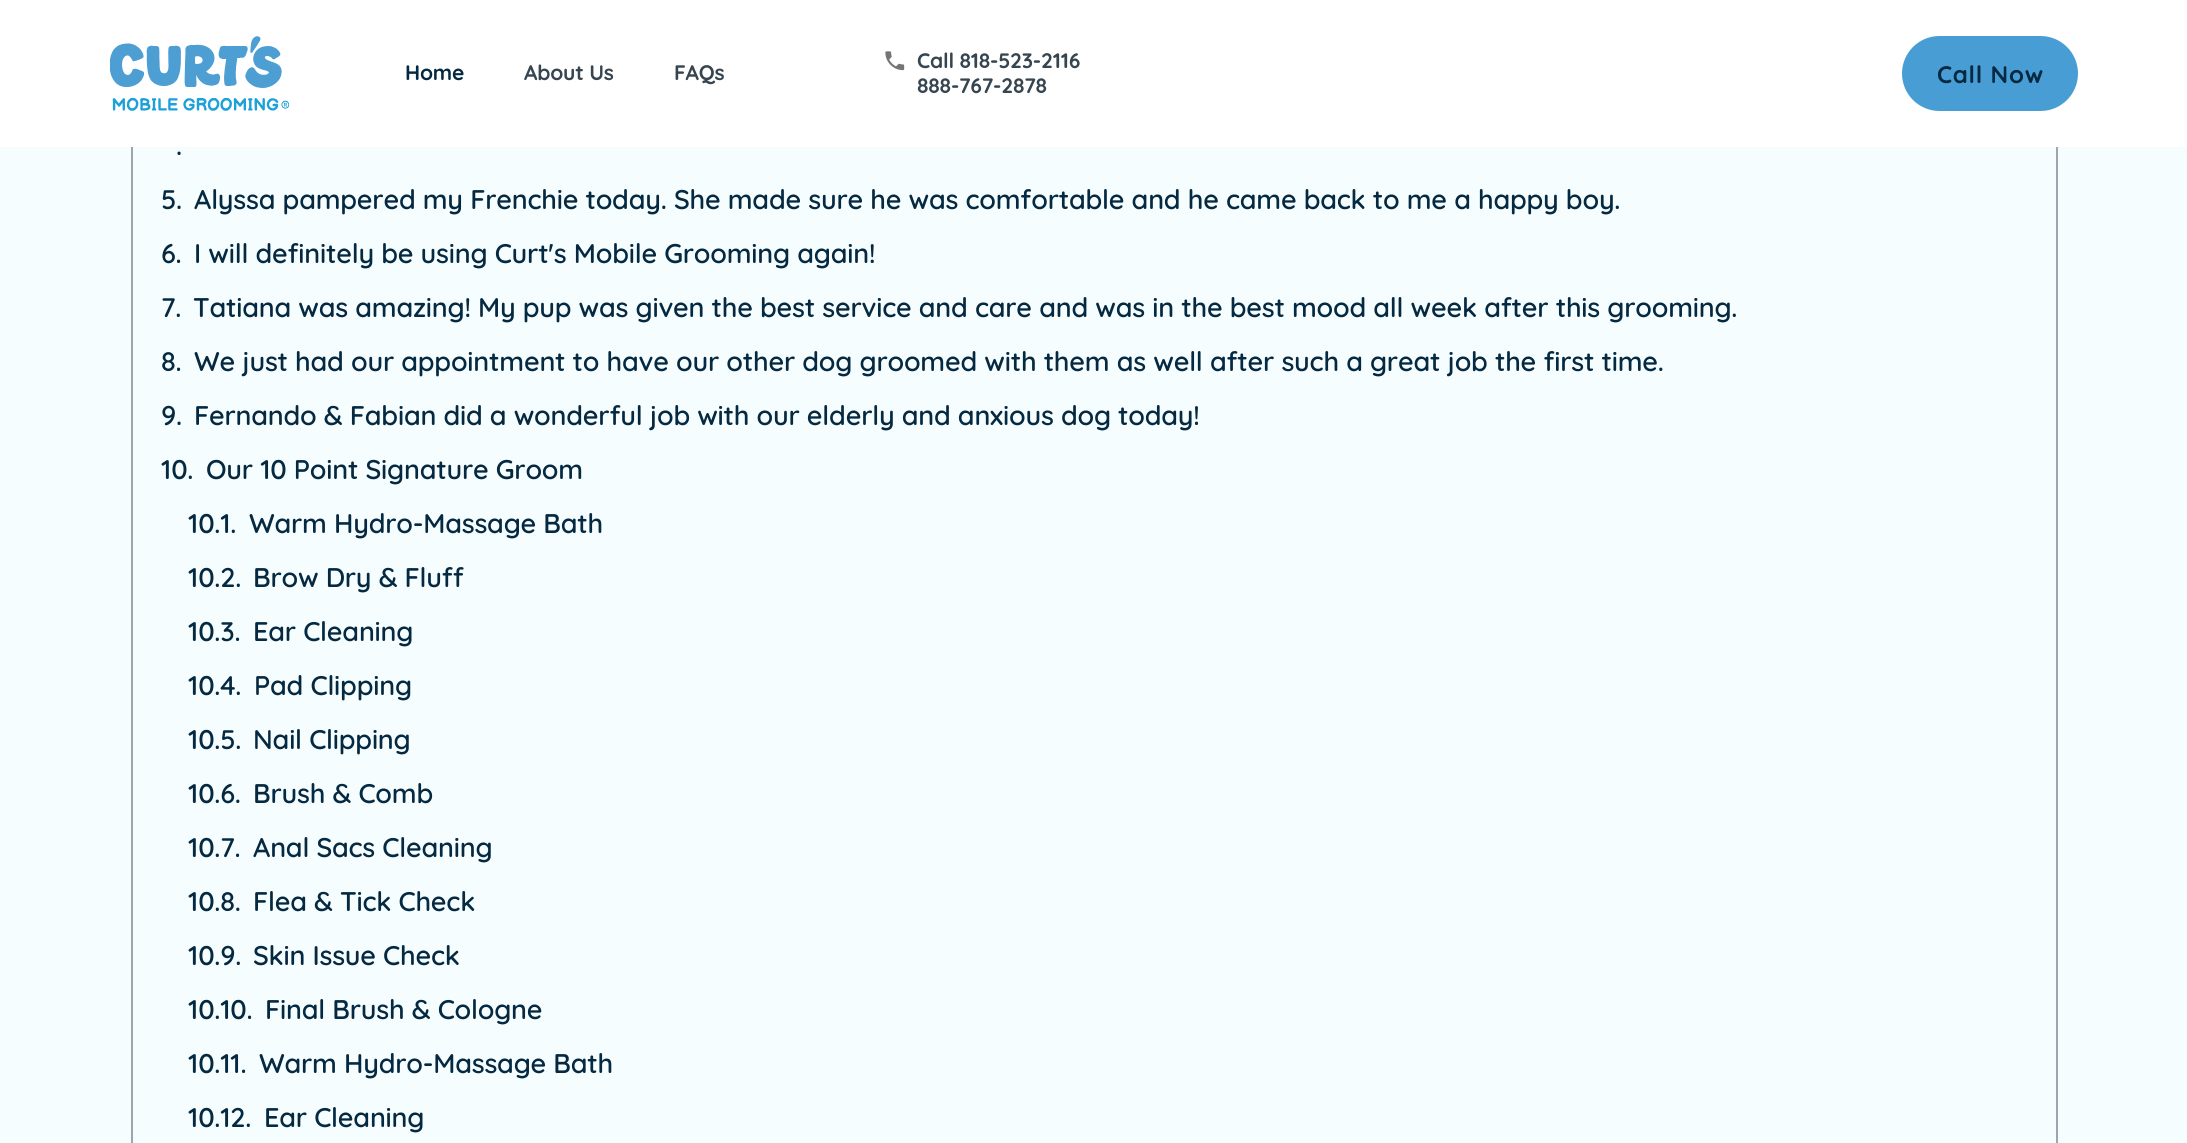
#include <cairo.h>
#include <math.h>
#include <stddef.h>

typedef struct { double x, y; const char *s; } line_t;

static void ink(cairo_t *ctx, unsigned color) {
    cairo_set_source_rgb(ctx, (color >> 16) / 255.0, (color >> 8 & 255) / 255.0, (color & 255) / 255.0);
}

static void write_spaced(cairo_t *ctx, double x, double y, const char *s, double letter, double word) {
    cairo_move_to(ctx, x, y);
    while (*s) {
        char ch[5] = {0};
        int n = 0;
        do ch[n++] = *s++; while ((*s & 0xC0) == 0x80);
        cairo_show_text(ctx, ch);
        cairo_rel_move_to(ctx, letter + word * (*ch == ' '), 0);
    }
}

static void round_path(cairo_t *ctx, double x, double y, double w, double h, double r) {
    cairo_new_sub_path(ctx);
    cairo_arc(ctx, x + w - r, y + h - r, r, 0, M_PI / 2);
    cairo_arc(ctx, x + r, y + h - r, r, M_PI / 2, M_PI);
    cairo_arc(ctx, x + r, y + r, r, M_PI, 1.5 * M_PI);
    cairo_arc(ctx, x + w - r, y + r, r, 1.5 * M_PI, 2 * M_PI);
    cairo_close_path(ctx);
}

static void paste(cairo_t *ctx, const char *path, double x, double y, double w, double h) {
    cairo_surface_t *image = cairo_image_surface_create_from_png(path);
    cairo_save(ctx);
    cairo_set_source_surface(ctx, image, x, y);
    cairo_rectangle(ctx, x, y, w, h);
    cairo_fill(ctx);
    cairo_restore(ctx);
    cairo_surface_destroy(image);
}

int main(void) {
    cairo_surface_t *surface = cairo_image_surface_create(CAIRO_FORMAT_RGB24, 2187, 1143);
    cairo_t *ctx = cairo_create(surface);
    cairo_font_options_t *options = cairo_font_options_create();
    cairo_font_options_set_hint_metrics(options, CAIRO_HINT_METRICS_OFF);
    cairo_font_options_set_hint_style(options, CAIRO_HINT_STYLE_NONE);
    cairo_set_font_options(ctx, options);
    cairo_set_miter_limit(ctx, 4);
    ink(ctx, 0xF5FDFE);
    cairo_paint(ctx);
    cairo_rectangle(ctx, 132, -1, 1925, 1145);
    ink(ctx, 0x9DA5AE);
    cairo_stroke(ctx);
    ink(ctx, 0xFFFFFF);
    cairo_rectangle(ctx, 0, 0, 2187, 147);
    cairo_fill(ctx);
    paste(ctx, "media/1.png", 110, 36, 180, 75);
    cairo_select_font_face(ctx, "Quicksand", CAIRO_FONT_SLANT_NORMAL, CAIRO_FONT_WEIGHT_BOLD);
    cairo_set_font_size(ctx, 21);
    ink(ctx, 0x052941);
    write_spaced(ctx, 405, 80, "Home", -0.21, 0);
    ink(ctx, 0x36454F);
    write_spaced(ctx, 524, 80, "About Us", -0.21, 0);
    write_spaced(ctx, 674, 80, "FAQs", -0.21, 0);
    paste(ctx, "media/2.png", 885, 51, 20, 20);
    write_spaced(ctx, 917, 68, "Call 818-523-2116", -0.21, 0);
    write_spaced(ctx, 917, 93, "888-767-2878", -0.21, 0);
    ink(ctx, 0x489ED4);
    round_path(ctx, 1903, 37, 174, 73, 36.5);
    cairo_fill_preserve(ctx);
    cairo_stroke(ctx);
    cairo_set_font_size(ctx, 24);
    ink(ctx, 0x052941);
    write_spaced(ctx, 1937, 83, "Call Now", 0.75, 0);
    cairo_select_font_face(ctx, "Quicksand SemiBold", CAIRO_FONT_SLANT_NORMAL, CAIRO_FONT_WEIGHT_NORMAL);
    cairo_set_font_size(ctx, 27);
    {
        static const line_t items[] = {
            {176, 155, "."},
            {161, 209, "5."},
            {194, 209, "Alyssa pampered my Frenchie today. She made sure he was comfortable and he came back to me a happy boy."},
            {161, 263, "6."},
            {194, 263, "I will definitely be using Curt's Mobile Grooming again!"},
            {161, 317, "7."},
            {193, 317, "Tatiana was amazing! My pup was given the best service and care and was in the best mood all week after this grooming."},
            {161, 371, "8."},
            {194, 371, "We just had our appointment to have our other dog groomed with them as well after such a great job the first time."},
            {161, 425, "9."},
            {194, 425, "Fernando & Fabian did a wonderful job with our elderly and anxious dog today!"},
            {161, 479, "10."},
            {206, 479, "Our 10 Point Signature Groom"},
            {188, 533, "10.1."},
            {249, 533, "Warm Hydro-Massage Bath"},
            {188, 587, "10.2."},
            {253, 587, "Brow Dry & Fluff"},
            {188, 641, "10.3."},
            {253, 641, "Ear Cleaning"},
            {188, 695, "10.4."},
            {254, 695, "Pad Clipping"},
            {188, 749, "10.5."},
            {253, 749, "Nail Clipping"},
            {188, 803, "10.6."},
            {253, 803, "Brush & Comb"},
            {188, 857, "10.7."},
            {253, 857, "Anal Sacs Cleaning"},
            {188, 911, "10.8."},
            {253, 911, "Flea & Tick Check"},
            {188, 965, "10.9."},
            {253, 965, "Skin Issue Check"},
            {188, 1019, "10.10."},
            {265, 1019, "Final Brush & Cologne"},
            {188, 1073, "10.11."},
            {259, 1073, "Warm Hydro-Massage Bath"},
            {188, 1127, "10.12."},
            {264, 1127, "Ear Cleaning"},
        };
        for (size_t i = 0; i < sizeof items / sizeof *items; i++) {
            write_spaced(ctx, items[i].x, items[i].y, items[i].s, -0.21, 0);
        }
    }
    cairo_surface_write_to_png(surface, "image.png");
    cairo_font_options_destroy(options);
    cairo_destroy(ctx);
    cairo_surface_destroy(surface);
    return 0;
}
